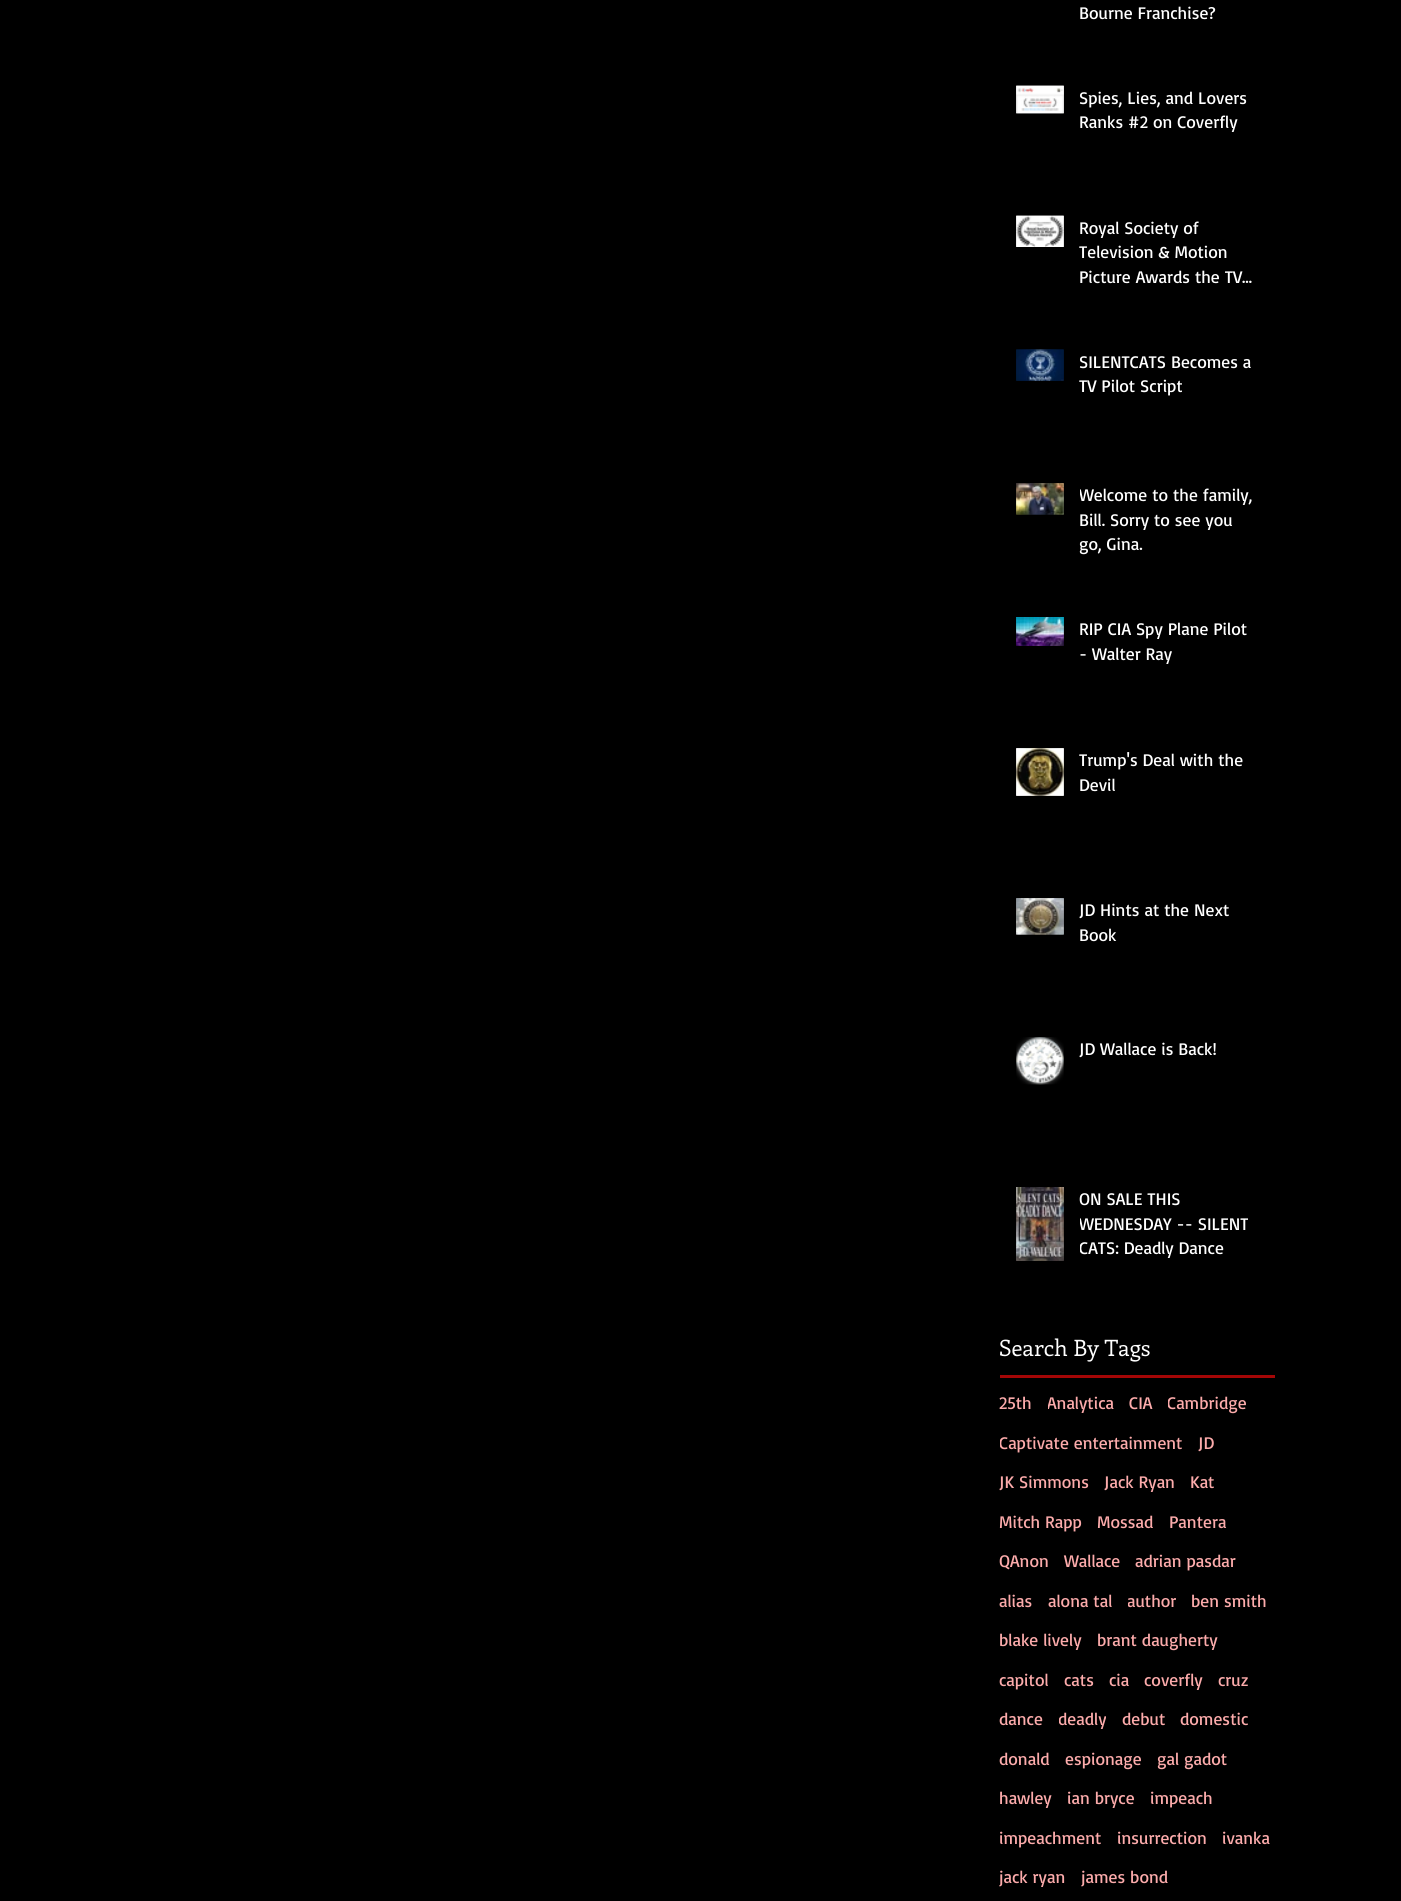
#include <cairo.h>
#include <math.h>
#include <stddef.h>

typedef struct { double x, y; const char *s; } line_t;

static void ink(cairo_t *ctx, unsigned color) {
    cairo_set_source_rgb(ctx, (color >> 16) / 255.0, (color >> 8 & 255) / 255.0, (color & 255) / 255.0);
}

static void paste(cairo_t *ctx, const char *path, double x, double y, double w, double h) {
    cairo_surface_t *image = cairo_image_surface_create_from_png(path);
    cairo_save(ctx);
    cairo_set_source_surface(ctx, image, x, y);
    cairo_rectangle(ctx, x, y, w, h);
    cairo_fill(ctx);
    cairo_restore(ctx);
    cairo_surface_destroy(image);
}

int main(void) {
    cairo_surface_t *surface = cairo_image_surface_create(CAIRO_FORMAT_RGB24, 1401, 1901);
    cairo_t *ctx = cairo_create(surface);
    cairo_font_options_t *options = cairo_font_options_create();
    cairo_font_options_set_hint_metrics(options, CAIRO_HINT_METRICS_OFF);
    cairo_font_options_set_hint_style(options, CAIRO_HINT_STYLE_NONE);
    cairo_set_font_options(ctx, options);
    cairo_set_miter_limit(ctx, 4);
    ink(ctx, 0x000000);
    cairo_paint(ctx);
    cairo_select_font_face(ctx, "Basic", CAIRO_FONT_SLANT_NORMAL, CAIRO_FONT_WEIGHT_NORMAL);
    cairo_set_font_size(ctx, 17.5);
    ink(ctx, 0xFFFFFF);
    cairo_move_to(ctx, 1079, 19);
    cairo_show_text(ctx, "Bourne Franchise?");
    paste(ctx, "media/1.png", 1016, 85, 48, 29);
    paste(ctx, "media/2.png", 1016, 85, 48, 29);
    cairo_move_to(ctx, 1079, 104);
    cairo_show_text(ctx, "Spies, Lies, and Lovers");
    cairo_move_to(ctx, 1079, 128);
    cairo_show_text(ctx, "Ranks #2 on Coverfly");
    paste(ctx, "media/3.png", 1016, 215, 48, 32);
    paste(ctx, "media/4.png", 1016, 215, 48, 32);
    {
        static const line_t items[] = {
            {1079, 234, "Royal Society of"},
            {1079, 258, "Television & Motion"},
            {1079, 283, "Picture Awards the TV…"},
        };
        for (size_t i = 0; i < sizeof items / sizeof *items; i++) {
            cairo_move_to(ctx, items[i].x, items[i].y);
            cairo_show_text(ctx, items[i].s);
        }
    }
    paste(ctx, "media/5.png", 1016, 349, 48, 32);
    paste(ctx, "media/6.png", 1016, 349, 48, 32);
    cairo_move_to(ctx, 1079, 368);
    cairo_show_text(ctx, "SILENTCATS Becomes a");
    cairo_move_to(ctx, 1079, 392);
    cairo_show_text(ctx, "TV Pilot Script");
    paste(ctx, "media/7.png", 1016, 483, 48, 32);
    paste(ctx, "media/8.png", 1016, 483, 48, 32);
    cairo_save(ctx);
    cairo_rectangle(ctx, 1080, 483, 180, 73);
    cairo_clip(ctx);
    cairo_move_to(ctx, 1079, 501);
    cairo_show_text(ctx, "Welcome to the family,");
    cairo_restore(ctx);
    cairo_move_to(ctx, 1079, 526);
    cairo_show_text(ctx, "Bill. Sorry to see you");
    cairo_move_to(ctx, 1079, 550);
    cairo_show_text(ctx, "go, Gina.");
    paste(ctx, "media/9.png", 1016, 617, 48, 29);
    paste(ctx, "media/10.png", 1016, 617, 48, 29);
    cairo_move_to(ctx, 1079, 635);
    cairo_show_text(ctx, "RIP CIA Spy Plane Pilot");
    cairo_move_to(ctx, 1079, 660);
    cairo_show_text(ctx, "- Walter Ray");
    paste(ctx, "media/11.png", 1016, 748, 48, 48);
    paste(ctx, "media/12.png", 1016, 748, 48, 48);
    cairo_move_to(ctx, 1079, 766);
    cairo_show_text(ctx, "Trump's Deal with the");
    cairo_move_to(ctx, 1079, 791);
    cairo_show_text(ctx, "Devil");
    paste(ctx, "media/13.png", 1016, 898, 48, 37);
    paste(ctx, "media/14.png", 1016, 898, 48, 37);
    cairo_move_to(ctx, 1079, 916);
    cairo_show_text(ctx, "JD Hints at the Next");
    cairo_move_to(ctx, 1079, 941);
    cairo_show_text(ctx, "Book");
    paste(ctx, "media/15.png", 1016, 1037, 48, 48);
    paste(ctx, "media/16.png", 1016, 1037, 48, 48);
    cairo_move_to(ctx, 1079, 1055);
    cairo_show_text(ctx, "JD Wallace is Back!");
    paste(ctx, "media/17.png", 1016, 1187, 48, 74);
    paste(ctx, "media/18.png", 1016, 1187, 48, 74);
    cairo_move_to(ctx, 1079, 1205);
    cairo_show_text(ctx, "ON SALE THIS");
    cairo_save(ctx);
    cairo_rectangle(ctx, 1080, 1186, 180, 74);
    cairo_clip(ctx);
    cairo_move_to(ctx, 1079, 1230);
    cairo_show_text(ctx, "WEDNESDAY -- SILENT");
    cairo_move_to(ctx, 1079, 1254);
    cairo_show_text(ctx, "CATS: Deadly Dance");
    cairo_restore(ctx);
    cairo_select_font_face(ctx, "Enriqueta", CAIRO_FONT_SLANT_NORMAL, CAIRO_FONT_WEIGHT_NORMAL);
    cairo_set_font_size(ctx, 22.5);
    cairo_move_to(ctx, 999, 1356);
    cairo_show_text(ctx, "Search By Tags");
    ink(ctx, 0xA40606);
    cairo_rectangle(ctx, 1000, 1375, 275, 3);
    cairo_fill(ctx);
    cairo_select_font_face(ctx, "Basic", CAIRO_FONT_SLANT_NORMAL, CAIRO_FONT_WEIGHT_NORMAL);
    cairo_set_font_size(ctx, 17.5);
    ink(ctx, 0xFCABAB);
    cairo_move_to(ctx, 999, 1409);
    cairo_show_text(ctx, "25th");
    cairo_save(ctx);
    cairo_rectangle(ctx, 1048, 1390, 66, 25);
    cairo_clip(ctx);
    cairo_move_to(ctx, 1047, 1409);
    cairo_show_text(ctx, "Analytica");
    cairo_restore(ctx);
    cairo_move_to(ctx, 1129, 1409);
    cairo_show_text(ctx, "CIA");
    cairo_save(ctx);
    cairo_rectangle(ctx, 1168, 1390, 80, 25);
    cairo_clip(ctx);
    cairo_move_to(ctx, 1167, 1409);
    cairo_show_text(ctx, "Cambridge");
    cairo_restore(ctx);
    cairo_save(ctx);
    cairo_rectangle(ctx, 1000, 1430, 183, 25);
    cairo_clip(ctx);
    cairo_move_to(ctx, 999, 1449);
    cairo_show_text(ctx, "Captivate entertainment");
    cairo_restore(ctx);
    {
        static const line_t items[] = {
            {1198, 1449, "JD"},
            {999, 1488, "JK Simmons"},
            {1104, 1488, "Jack Ryan"},
            {1190, 1488, "Kat"},
            {999, 1528, "Mitch Rapp"},
            {1097, 1528, "Mossad"},
            {1169, 1528, "Pantera"},
            {999, 1567, "QAnon"},
            {1064, 1567, "Wallace"},
            {1135, 1567, "adrian pasdar"},
            {999, 1607, "alias"},
            {1048, 1607, "alona tal"},
        };
        for (size_t i = 0; i < sizeof items / sizeof *items; i++) {
            cairo_move_to(ctx, items[i].x, items[i].y);
            cairo_show_text(ctx, items[i].s);
        }
    }
    cairo_save(ctx);
    cairo_rectangle(ctx, 1128, 1588, 48, 25);
    cairo_clip(ctx);
    cairo_move_to(ctx, 1127, 1607);
    cairo_show_text(ctx, "author");
    cairo_restore(ctx);
    {
        static const line_t items[] = {
            {1191, 1607, "ben smith"},
            {999, 1646, "blake lively"},
            {1097, 1646, "brant daugherty"},
            {999, 1686, "capitol"},
            {1064, 1686, "cats"},
            {1109, 1686, "cia"},
            {1144, 1686, "coverfly"},
            {1218, 1686, "cruz"},
            {999, 1725, "dance"},
        };
        for (size_t i = 0; i < sizeof items / sizeof *items; i++) {
            cairo_move_to(ctx, items[i].x, items[i].y);
            cairo_show_text(ctx, items[i].s);
        }
    }
    cairo_save(ctx);
    cairo_rectangle(ctx, 1059, 1706, 47, 25);
    cairo_clip(ctx);
    cairo_move_to(ctx, 1058, 1725);
    cairo_show_text(ctx, "deadly");
    cairo_restore(ctx);
    {
        static const line_t items[] = {
            {1122, 1725, "debut"},
            {1180, 1725, "domestic"},
            {999, 1765, "donald"},
            {1065, 1765, "espionage"},
            {1157, 1765, "gal gadot"},
            {999, 1804, "hawley"},
            {1067, 1804, "ian bryce"},
            {1150, 1804, "impeach"},
            {999, 1844, "impeachment"},
            {1117, 1844, "insurrection"},
            {1222, 1844, "ivanka"},
            {999, 1883, "jack ryan"},
            {1081, 1883, "james bond"},
        };
        for (size_t i = 0; i < sizeof items / sizeof *items; i++) {
            cairo_move_to(ctx, items[i].x, items[i].y);
            cairo_show_text(ctx, items[i].s);
        }
    }
    cairo_surface_write_to_png(surface, "image.png");
    cairo_font_options_destroy(options);
    cairo_destroy(ctx);
    cairo_surface_destroy(surface);
    return 0;
}
